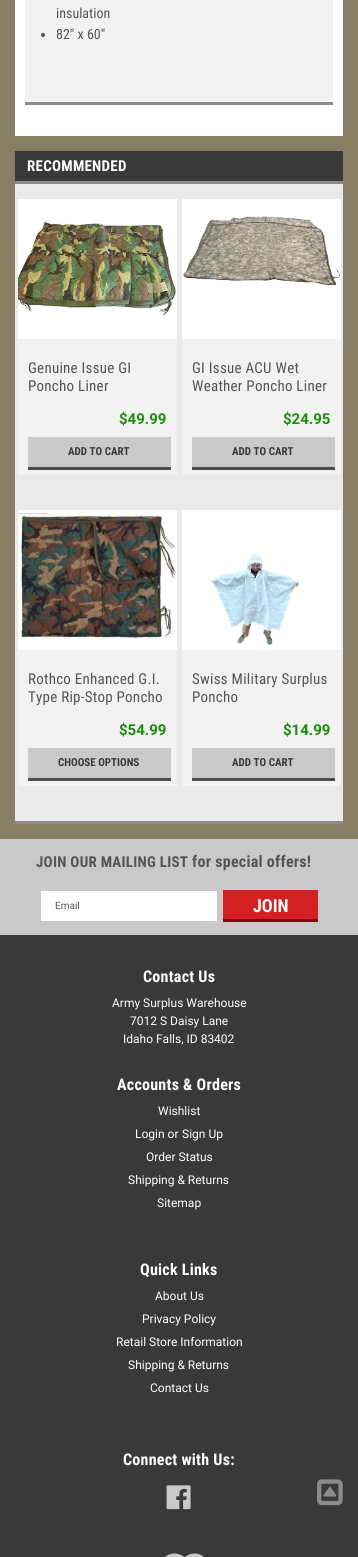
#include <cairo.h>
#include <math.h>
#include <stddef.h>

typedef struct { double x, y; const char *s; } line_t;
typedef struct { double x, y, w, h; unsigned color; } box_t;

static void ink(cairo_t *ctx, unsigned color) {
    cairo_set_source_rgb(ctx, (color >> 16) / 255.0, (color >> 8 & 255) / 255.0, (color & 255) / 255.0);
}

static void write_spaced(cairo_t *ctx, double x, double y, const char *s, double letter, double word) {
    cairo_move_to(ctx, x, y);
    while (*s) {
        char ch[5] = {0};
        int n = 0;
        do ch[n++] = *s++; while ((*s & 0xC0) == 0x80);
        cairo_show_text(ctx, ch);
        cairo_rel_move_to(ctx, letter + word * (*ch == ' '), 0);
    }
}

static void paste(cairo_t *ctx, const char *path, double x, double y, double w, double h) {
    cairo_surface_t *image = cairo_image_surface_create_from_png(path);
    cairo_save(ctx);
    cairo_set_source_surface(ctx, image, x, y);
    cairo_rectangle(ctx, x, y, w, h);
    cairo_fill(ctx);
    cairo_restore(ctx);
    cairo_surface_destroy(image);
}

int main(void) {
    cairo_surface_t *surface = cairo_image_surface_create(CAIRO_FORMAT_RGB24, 358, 1557);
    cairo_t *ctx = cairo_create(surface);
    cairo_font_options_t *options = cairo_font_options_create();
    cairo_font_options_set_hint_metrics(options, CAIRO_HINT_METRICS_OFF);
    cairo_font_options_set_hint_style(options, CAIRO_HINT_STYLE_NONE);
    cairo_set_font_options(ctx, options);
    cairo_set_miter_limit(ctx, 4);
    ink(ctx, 0x877E64);
    cairo_paint(ctx);
    {
        static const box_t items[] = {
            {15, 0, 328, 136, 0xFFFFFF},
            {25, 0, 308, 102, 0xF2F2F2},
            {25, 102, 308, 3, 0x8B8B8B},
        };
        for (size_t i = 0; i < sizeof items / sizeof *items; i++) {
            ink(ctx, items[i].color);
            cairo_rectangle(ctx, items[i].x, items[i].y, items[i].w, items[i].h);
            cairo_fill(ctx);
        }
    }
    cairo_select_font_face(ctx, "Roboto Condensed", CAIRO_FONT_SLANT_NORMAL, CAIRO_FONT_WEIGHT_NORMAL);
    cairo_set_font_size(ctx, 14);
    ink(ctx, 0x545454);
    cairo_move_to(ctx, 56, 18);
    cairo_show_text(ctx, "insulation");
    cairo_new_path(ctx);
    cairo_arc(ctx, 43, 35, 2, 0, 2 * M_PI);
    cairo_fill(ctx);
    cairo_move_to(ctx, 56, 39);
    cairo_show_text(ctx, "82\" x 60\"");
    ink(ctx, 0x393939);
    cairo_rectangle(ctx, 15, 151, 328, 30);
    cairo_fill(ctx);
    ink(ctx, 0x8B8B8B);
    cairo_rectangle(ctx, 15, 181, 328, 3);
    cairo_fill(ctx);
    cairo_select_font_face(ctx, "Roboto Condensed", CAIRO_FONT_SLANT_NORMAL, CAIRO_FONT_WEIGHT_BOLD);
    cairo_set_font_size(ctx, 15);
    ink(ctx, 0xFFFFFF);
    write_spaced(ctx, 27, 171, "RECOMMENDED", 0.25, 0);
    {
        static const box_t items[] = {
            {15, 821, 328, 3, 0x8B8B8B},
            {15, 184, 328, 637, 0xEAEAEA},
            {18, 339, 159, 136, 0xF2F2F2},
            {18, 199, 159, 140, 0xFFFFFF},
        };
        for (size_t i = 0; i < sizeof items / sizeof *items; i++) {
            ink(ctx, items[i].color);
            cairo_rectangle(ctx, items[i].x, items[i].y, items[i].w, items[i].h);
            cairo_fill(ctx);
        }
    }
    paste(ctx, "media/1.png", 18, 221, 158, 95);
    cairo_select_font_face(ctx, "Roboto Condensed", CAIRO_FONT_SLANT_NORMAL, CAIRO_FONT_WEIGHT_NORMAL);
    ink(ctx, 0x545454);
    write_spaced(ctx, 28, 373, "Genuine Issue GI", 0.25, 0);
    write_spaced(ctx, 28, 391, "Poncho Liner", 0.25, 0);
    cairo_select_font_face(ctx, "Roboto", CAIRO_FONT_SLANT_NORMAL, CAIRO_FONT_WEIGHT_BOLD);
    ink(ctx, 0x1A8F0A);
    cairo_move_to(ctx, 119, 424);
    cairo_show_text(ctx, "$49.99");
    ink(ctx, 0xCAC9C9);
    cairo_rectangle(ctx, 28, 437, 143, 30);
    cairo_fill(ctx);
    ink(ctx, 0x4C4C4C);
    cairo_rectangle(ctx, 28, 467, 143, 3);
    cairo_fill(ctx);
    cairo_select_font_face(ctx, "Roboto Condensed", CAIRO_FONT_SLANT_NORMAL, CAIRO_FONT_WEIGHT_BOLD);
    cairo_set_font_size(ctx, 11);
    ink(ctx, 0x393939);
    cairo_move_to(ctx, 68, 455);
    cairo_show_text(ctx, "ADD TO CART");
    ink(ctx, 0xF2F2F2);
    cairo_rectangle(ctx, 182, 339, 159, 136);
    cairo_fill(ctx);
    ink(ctx, 0xFFFFFF);
    cairo_rectangle(ctx, 182, 199, 159, 140);
    cairo_fill(ctx);
    paste(ctx, "media/2.png", 183, 216, 158, 70);
    cairo_select_font_face(ctx, "Roboto Condensed", CAIRO_FONT_SLANT_NORMAL, CAIRO_FONT_WEIGHT_NORMAL);
    cairo_set_font_size(ctx, 15);
    ink(ctx, 0x545454);
    write_spaced(ctx, 192, 373, "GI Issue ACU Wet", 0.25, 0);
    write_spaced(ctx, 192, 391, "Weather Poncho Liner", 0.25, 0);
    cairo_select_font_face(ctx, "Roboto", CAIRO_FONT_SLANT_NORMAL, CAIRO_FONT_WEIGHT_BOLD);
    ink(ctx, 0x1A8F0A);
    cairo_move_to(ctx, 283, 424);
    cairo_show_text(ctx, "$24.95");
    ink(ctx, 0xCAC9C9);
    cairo_rectangle(ctx, 192, 437, 143, 30);
    cairo_fill(ctx);
    ink(ctx, 0x4C4C4C);
    cairo_rectangle(ctx, 192, 467, 143, 3);
    cairo_fill(ctx);
    cairo_select_font_face(ctx, "Roboto Condensed", CAIRO_FONT_SLANT_NORMAL, CAIRO_FONT_WEIGHT_BOLD);
    cairo_set_font_size(ctx, 11);
    ink(ctx, 0x393939);
    cairo_move_to(ctx, 232, 455);
    cairo_show_text(ctx, "ADD TO CART");
    ink(ctx, 0xF2F2F2);
    cairo_rectangle(ctx, 18, 650, 159, 136);
    cairo_fill(ctx);
    ink(ctx, 0xFFFFFF);
    cairo_rectangle(ctx, 18, 510, 159, 140);
    cairo_fill(ctx);
    paste(ctx, "media/3.png", 18, 513, 158, 128);
    cairo_select_font_face(ctx, "Roboto Condensed", CAIRO_FONT_SLANT_NORMAL, CAIRO_FONT_WEIGHT_NORMAL);
    cairo_set_font_size(ctx, 15);
    ink(ctx, 0x545454);
    write_spaced(ctx, 28, 684, "Rothco Enhanced G.I.", 0.25, 0);
    write_spaced(ctx, 28, 702, "Type Rip-Stop Poncho", 0.25, 0);
    cairo_select_font_face(ctx, "Roboto", CAIRO_FONT_SLANT_NORMAL, CAIRO_FONT_WEIGHT_BOLD);
    ink(ctx, 0x1A8F0A);
    cairo_move_to(ctx, 119, 735);
    cairo_show_text(ctx, "$54.99");
    ink(ctx, 0xCAC9C9);
    cairo_rectangle(ctx, 28, 748, 143, 30);
    cairo_fill(ctx);
    ink(ctx, 0x4C4C4C);
    cairo_rectangle(ctx, 28, 778, 143, 3);
    cairo_fill(ctx);
    cairo_select_font_face(ctx, "Roboto Condensed", CAIRO_FONT_SLANT_NORMAL, CAIRO_FONT_WEIGHT_BOLD);
    cairo_set_font_size(ctx, 11);
    ink(ctx, 0x393939);
    cairo_move_to(ctx, 58, 766);
    cairo_show_text(ctx, "CHOOSE OPTIONS");
    ink(ctx, 0xF2F2F2);
    cairo_rectangle(ctx, 182, 650, 159, 136);
    cairo_fill(ctx);
    ink(ctx, 0xFFFFFF);
    cairo_rectangle(ctx, 182, 510, 159, 140);
    cairo_fill(ctx);
    paste(ctx, "media/4.png", 211, 553, 88, 92);
    cairo_select_font_face(ctx, "Roboto Condensed", CAIRO_FONT_SLANT_NORMAL, CAIRO_FONT_WEIGHT_NORMAL);
    cairo_set_font_size(ctx, 15);
    ink(ctx, 0x545454);
    write_spaced(ctx, 192, 684, "Swiss Military Surplus", 0.25, 0);
    write_spaced(ctx, 192, 702, "Poncho", 0.25, 0);
    cairo_select_font_face(ctx, "Roboto", CAIRO_FONT_SLANT_NORMAL, CAIRO_FONT_WEIGHT_BOLD);
    ink(ctx, 0x1A8F0A);
    cairo_move_to(ctx, 283, 735);
    cairo_show_text(ctx, "$14.99");
    ink(ctx, 0xCAC9C9);
    cairo_rectangle(ctx, 192, 748, 143, 30);
    cairo_fill(ctx);
    ink(ctx, 0x4C4C4C);
    cairo_rectangle(ctx, 192, 778, 143, 3);
    cairo_fill(ctx);
    cairo_select_font_face(ctx, "Roboto Condensed", CAIRO_FONT_SLANT_NORMAL, CAIRO_FONT_WEIGHT_BOLD);
    cairo_set_font_size(ctx, 11);
    ink(ctx, 0x393939);
    cairo_move_to(ctx, 232, 766);
    cairo_show_text(ctx, "ADD TO CART");
    cairo_rectangle(ctx, 0, 935, 358, 622);
    cairo_fill(ctx);
    ink(ctx, 0xCAC9C9);
    cairo_rectangle(ctx, 0, 839, 358, 96);
    cairo_fill(ctx);
    cairo_set_font_size(ctx, 15);
    ink(ctx, 0x545454);
    write_spaced(ctx, 36, 867, "JOIN OUR MAILING LIST", 0.25, 0);
    cairo_set_font_size(ctx, 16);
    write_spaced(ctx, 192, 867, "for special offers!", 0.25, 0);
    ink(ctx, 0xFFFFFF);
    cairo_rectangle(ctx, 41, 891, 176, 30);
    cairo_fill(ctx);
    cairo_select_font_face(ctx, "Roboto", CAIRO_FONT_SLANT_NORMAL, CAIRO_FONT_WEIGHT_NORMAL);
    cairo_set_font_size(ctx, 10);
    ink(ctx, 0x545454);
    cairo_move_to(ctx, 55, 909);
    cairo_show_text(ctx, "Email");
    ink(ctx, 0xD42020);
    cairo_rectangle(ctx, 223, 890, 95, 29);
    cairo_fill(ctx);
    ink(ctx, 0x860109);
    cairo_rectangle(ctx, 223, 919, 95, 3);
    cairo_fill(ctx);
    cairo_select_font_face(ctx, "Roboto Condensed", CAIRO_FONT_SLANT_NORMAL, CAIRO_FONT_WEIGHT_BOLD);
    cairo_set_font_size(ctx, 18);
    ink(ctx, 0xFFFFFF);
    cairo_move_to(ctx, 253, 912);
    cairo_show_text(ctx, "JOIN");
    cairo_set_font_size(ctx, 16);
    write_spaced(ctx, 143, 982, "Contact Us", 0.25, 0);
    cairo_select_font_face(ctx, "Roboto", CAIRO_FONT_SLANT_NORMAL, CAIRO_FONT_WEIGHT_NORMAL);
    cairo_set_font_size(ctx, 12);
    {
        static const line_t items[] = {
            {112, 1007, "Army Surplus Warehouse"},
            {130, 1025, "7012 S Daisy Lane"},
            {123, 1043, "Idaho Falls, ID 83402"},
        };
        for (size_t i = 0; i < sizeof items / sizeof *items; i++) {
            cairo_move_to(ctx, items[i].x, items[i].y);
            cairo_show_text(ctx, items[i].s);
        }
    }
    cairo_select_font_face(ctx, "Roboto Condensed", CAIRO_FONT_SLANT_NORMAL, CAIRO_FONT_WEIGHT_BOLD);
    cairo_set_font_size(ctx, 16);
    write_spaced(ctx, 117, 1090, "Accounts & Orders", 0.25, 0);
    cairo_select_font_face(ctx, "Roboto", CAIRO_FONT_SLANT_NORMAL, CAIRO_FONT_WEIGHT_NORMAL);
    cairo_set_font_size(ctx, 12);
    {
        static const line_t items[] = {
            {158, 1115, "Wishlist"},
            {135, 1138, "Login or"},
            {182, 1138, "Sign Up"},
            {146, 1161, "Order Status"},
            {128, 1184, "Shipping & Returns"},
            {157, 1207, "Sitemap"},
        };
        for (size_t i = 0; i < sizeof items / sizeof *items; i++) {
            cairo_move_to(ctx, items[i].x, items[i].y);
            cairo_show_text(ctx, items[i].s);
        }
    }
    cairo_select_font_face(ctx, "Roboto Condensed", CAIRO_FONT_SLANT_NORMAL, CAIRO_FONT_WEIGHT_BOLD);
    cairo_set_font_size(ctx, 16);
    write_spaced(ctx, 140, 1275, "Quick Links", 0.25, 0);
    cairo_select_font_face(ctx, "Roboto", CAIRO_FONT_SLANT_NORMAL, CAIRO_FONT_WEIGHT_NORMAL);
    cairo_set_font_size(ctx, 12);
    {
        static const line_t items[] = {
            {155, 1300, "About Us"},
            {142, 1323, "Privacy Policy"},
            {116, 1346, "Retail Store Information"},
            {128, 1369, "Shipping & Returns"},
            {150, 1392, "Contact Us"},
        };
        for (size_t i = 0; i < sizeof items / sizeof *items; i++) {
            cairo_move_to(ctx, items[i].x, items[i].y);
            cairo_show_text(ctx, items[i].s);
        }
    }
    cairo_select_font_face(ctx, "Roboto Condensed", CAIRO_FONT_SLANT_NORMAL, CAIRO_FONT_WEIGHT_BOLD);
    cairo_set_font_size(ctx, 16);
    write_spaced(ctx, 123, 1465, "Connect with Us:", 0.25, 0);
    paste(ctx, "media/5.png", 166, 1485, 25, 25);
    paste(ctx, "media/6.png", 165, 1553, 39, 4);
    paste(ctx, "media/7.png", 317, 1479, 26, 27);
    cairo_surface_write_to_png(surface, "image.png");
    cairo_font_options_destroy(options);
    cairo_destroy(ctx);
    cairo_surface_destroy(surface);
    return 0;
}
